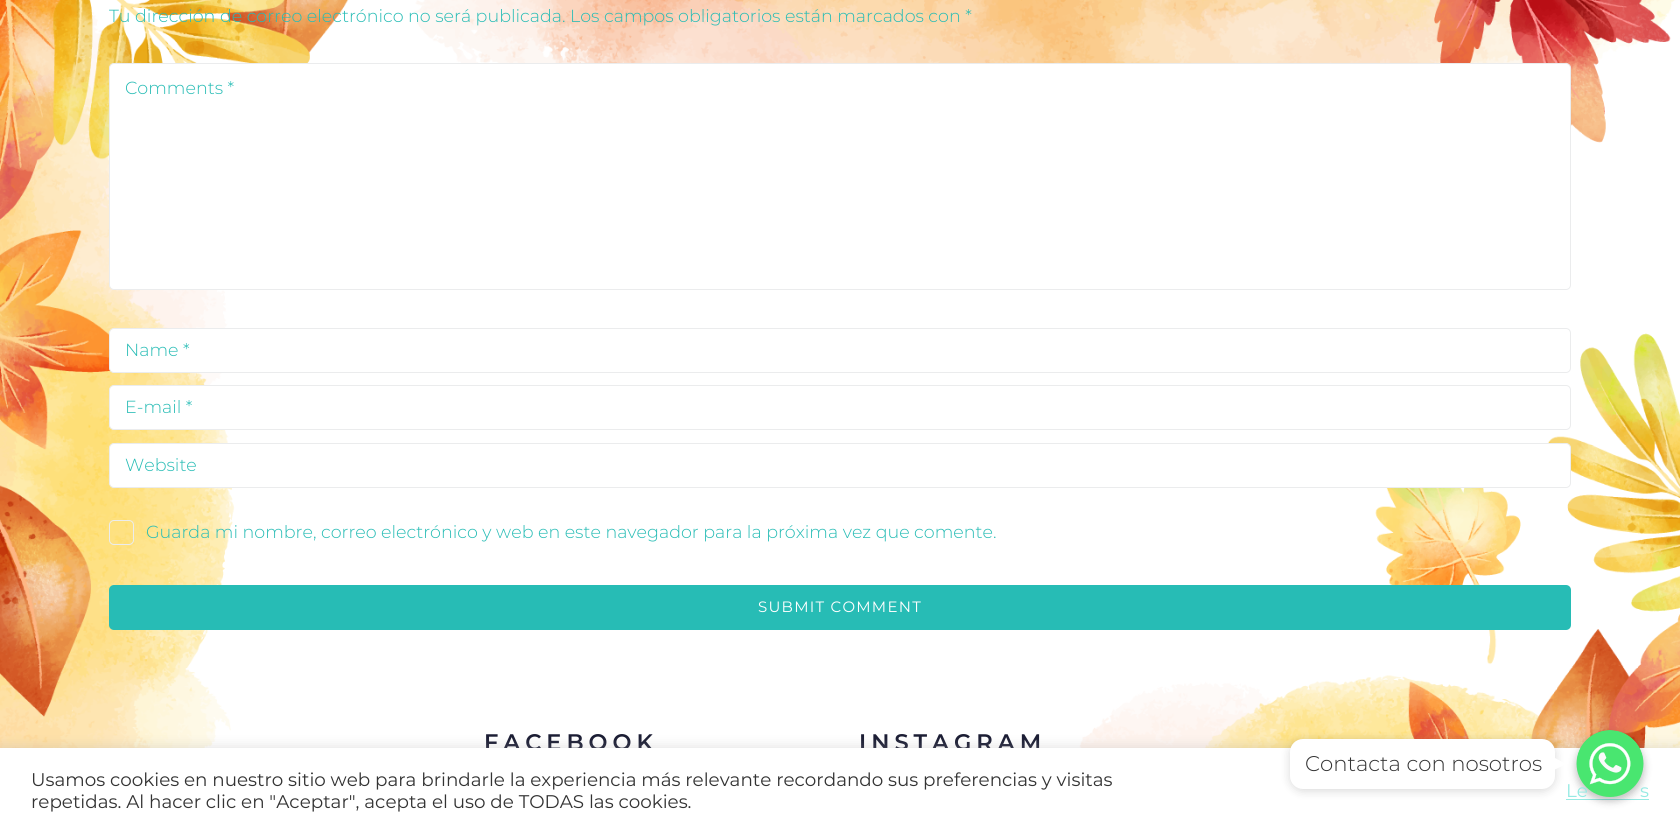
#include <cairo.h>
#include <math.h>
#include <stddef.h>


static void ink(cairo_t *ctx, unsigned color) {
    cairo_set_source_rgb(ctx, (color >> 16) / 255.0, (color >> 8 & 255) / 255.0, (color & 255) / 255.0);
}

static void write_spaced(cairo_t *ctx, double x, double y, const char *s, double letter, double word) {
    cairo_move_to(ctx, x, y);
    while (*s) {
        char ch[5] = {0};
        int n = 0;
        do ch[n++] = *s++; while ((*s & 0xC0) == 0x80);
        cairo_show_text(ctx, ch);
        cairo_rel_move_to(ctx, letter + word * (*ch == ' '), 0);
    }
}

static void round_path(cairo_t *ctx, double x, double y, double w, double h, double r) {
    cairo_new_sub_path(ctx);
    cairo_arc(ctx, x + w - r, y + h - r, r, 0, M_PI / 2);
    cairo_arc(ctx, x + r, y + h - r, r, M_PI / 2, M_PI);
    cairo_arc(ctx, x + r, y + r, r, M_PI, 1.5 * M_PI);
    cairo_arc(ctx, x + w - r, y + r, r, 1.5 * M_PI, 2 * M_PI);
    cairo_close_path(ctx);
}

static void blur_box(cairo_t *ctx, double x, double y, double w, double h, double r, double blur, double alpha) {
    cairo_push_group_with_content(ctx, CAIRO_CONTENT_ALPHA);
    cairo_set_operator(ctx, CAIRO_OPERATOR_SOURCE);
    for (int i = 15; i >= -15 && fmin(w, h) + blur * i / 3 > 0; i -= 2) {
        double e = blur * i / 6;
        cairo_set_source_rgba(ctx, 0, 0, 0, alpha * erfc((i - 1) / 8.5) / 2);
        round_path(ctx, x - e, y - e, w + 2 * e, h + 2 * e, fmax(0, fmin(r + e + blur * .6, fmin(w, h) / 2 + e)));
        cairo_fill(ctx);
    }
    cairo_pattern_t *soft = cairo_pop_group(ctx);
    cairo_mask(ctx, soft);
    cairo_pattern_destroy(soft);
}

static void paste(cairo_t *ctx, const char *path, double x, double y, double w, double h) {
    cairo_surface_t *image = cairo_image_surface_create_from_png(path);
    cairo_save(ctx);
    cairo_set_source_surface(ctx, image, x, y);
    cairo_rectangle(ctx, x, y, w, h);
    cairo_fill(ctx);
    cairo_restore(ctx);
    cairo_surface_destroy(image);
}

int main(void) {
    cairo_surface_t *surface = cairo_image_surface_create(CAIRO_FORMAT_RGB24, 1680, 833);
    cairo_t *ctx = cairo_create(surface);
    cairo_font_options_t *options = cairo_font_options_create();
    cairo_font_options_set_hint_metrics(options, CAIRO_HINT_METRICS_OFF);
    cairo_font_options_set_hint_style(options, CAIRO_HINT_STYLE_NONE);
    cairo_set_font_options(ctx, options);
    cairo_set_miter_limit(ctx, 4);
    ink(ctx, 0xFFFFFF);
    cairo_paint(ctx);
    paste(ctx, "media/1.png", 0, 0, 1680, 748);
    cairo_select_font_face(ctx, "Montserrat Light", CAIRO_FONT_SLANT_NORMAL, CAIRO_FONT_WEIGHT_NORMAL);
    cairo_set_font_size(ctx, 17.5);
    ink(ctx, 0x27BCB5);
    cairo_move_to(ctx, 109, 22);
    cairo_show_text(ctx, "Tu dirección de correo electrónico no será publicada. Los campos obligatorios están marcados con *");
    ink(ctx, 0xFFFFFF);
    round_path(ctx, 109.5, 63.5, 1461, 226, 4.5);
    cairo_fill_preserve(ctx);
    ink(ctx, 0xEBECED);
    cairo_set_line_width(ctx, 1);
    cairo_stroke(ctx);
    ink(ctx, 0x27BCB5);
    cairo_move_to(ctx, 125, 94);
    cairo_show_text(ctx, "Comments *");
    ink(ctx, 0xFFFFFF);
    round_path(ctx, 109.5, 328.5, 1461, 44, 4.5);
    cairo_fill_preserve(ctx);
    ink(ctx, 0xEBECED);
    cairo_stroke(ctx);
    ink(ctx, 0x27BCB5);
    cairo_move_to(ctx, 125, 356);
    cairo_show_text(ctx, "Name *");
    ink(ctx, 0xFFFFFF);
    round_path(ctx, 109.5, 385.5, 1461, 44, 4.5);
    cairo_fill_preserve(ctx);
    ink(ctx, 0xEBECED);
    cairo_stroke(ctx);
    ink(ctx, 0x27BCB5);
    cairo_move_to(ctx, 125, 413);
    cairo_show_text(ctx, "E-mail *");
    ink(ctx, 0xFFFFFF);
    round_path(ctx, 109.5, 443.5, 1461, 44, 4.5);
    cairo_fill_preserve(ctx);
    ink(ctx, 0xEBECED);
    cairo_stroke(ctx);
    ink(ctx, 0x27BCB5);
    cairo_move_to(ctx, 125, 471);
    cairo_show_text(ctx, "Website");
    round_path(ctx, 109.5, 520.5, 24, 24, 4.5);
    ink(ctx, 0xEBECED);
    cairo_stroke(ctx);
    ink(ctx, 0x27BCB5);
    cairo_move_to(ctx, 146, 538);
    cairo_show_text(ctx, "Guarda mi nombre, correo electrónico y web en este navegador para la próxima vez que comente.");
    round_path(ctx, 109, 585, 1462, 45, 5);
    cairo_fill(ctx);
    cairo_select_font_face(ctx, "Montserrat", CAIRO_FONT_SLANT_NORMAL, CAIRO_FONT_WEIGHT_NORMAL);
    cairo_set_font_size(ctx, 15);
    ink(ctx, 0xFFFFFF);
    write_spaced(ctx, 758, 612, "SUBMIT COMMENT", 1.25, 0);
    cairo_select_font_face(ctx, "Montserrat SemiBold", CAIRO_FONT_SLANT_NORMAL, CAIRO_FONT_WEIGHT_NORMAL);
    cairo_set_font_size(ctx, 22.5);
    ink(ctx, 0x191B32);
    write_spaced(ctx, 484, 750, "FACEBOOK", 5, 0);
    write_spaced(ctx, 859, 750, "INSTAGRAM", 5, 0);
    ink(ctx, 0xACABAB);
    blur_box(ctx, 0, 746, 1680, 87, 0, 6, 0.3);
    ink(ctx, 0xFFFFFF);
    cairo_rectangle(ctx, 0, 748, 1680, 85);
    cairo_fill(ctx);
    ink(ctx, 0x96EAE3);
    cairo_rectangle(ctx, 1566, 799, 83, 1);
    cairo_fill(ctx);
    ink(ctx, 0x000000);
    blur_box(ctx, 1290, 741, 265, 50, 13, 5, 0.15);
    ink(ctx, 0xFFFFFF);
    round_path(ctx, 1290, 739, 265, 50, 13);
    cairo_fill(ctx);
    cairo_select_font_face(ctx, "Montserrat Light", CAIRO_FONT_SLANT_NORMAL, CAIRO_FONT_WEIGHT_NORMAL);
    cairo_set_font_size(ctx, 21.25);
    ink(ctx, 0x333333);
    cairo_move_to(ctx, 1305, 771);
    cairo_show_text(ctx, "Contacta con nosotros");
    ink(ctx, 0x000000);
    blur_box(ctx, 1576, 734, 68, 67, 33.5, 4, 0.25);
    ink(ctx, 0xFFFFFF);
    cairo_new_path(ctx);
    cairo_move_to(ctx, 1554, 770);
    cairo_line_to(ctx, 1554, 757.5);
    cairo_line_to(ctx, 1566, 764);
    cairo_close_path(ctx);
    cairo_fill(ctx);
    cairo_select_font_face(ctx, "Montserrat", CAIRO_FONT_SLANT_NORMAL, CAIRO_FONT_WEIGHT_NORMAL);
    cairo_set_font_size(ctx, 18.33);
    ink(ctx, 0x96EAE3);
    cairo_move_to(ctx, 1566, 797);
    cairo_show_text(ctx, "Le");
    cairo_move_to(ctx, 1640, 797);
    cairo_show_text(ctx, "s");
    paste(ctx, "media/2.png", 1576, 730, 68, 67);
    ink(ctx, 0x333333);
    cairo_move_to(ctx, 31, 786);
    cairo_show_text(ctx, "Usamos cookies en nuestro sitio web para brindarle la experiencia más relevante recordando sus preferencias y visitas");
    cairo_move_to(ctx, 31, 808);
    cairo_show_text(ctx, "repetidas. Al hacer clic en \"Aceptar\", acepta el uso de TODAS las cookies.");
    cairo_surface_write_to_png(surface, "image.png");
    cairo_font_options_destroy(options);
    cairo_destroy(ctx);
    cairo_surface_destroy(surface);
    return 0;
}
